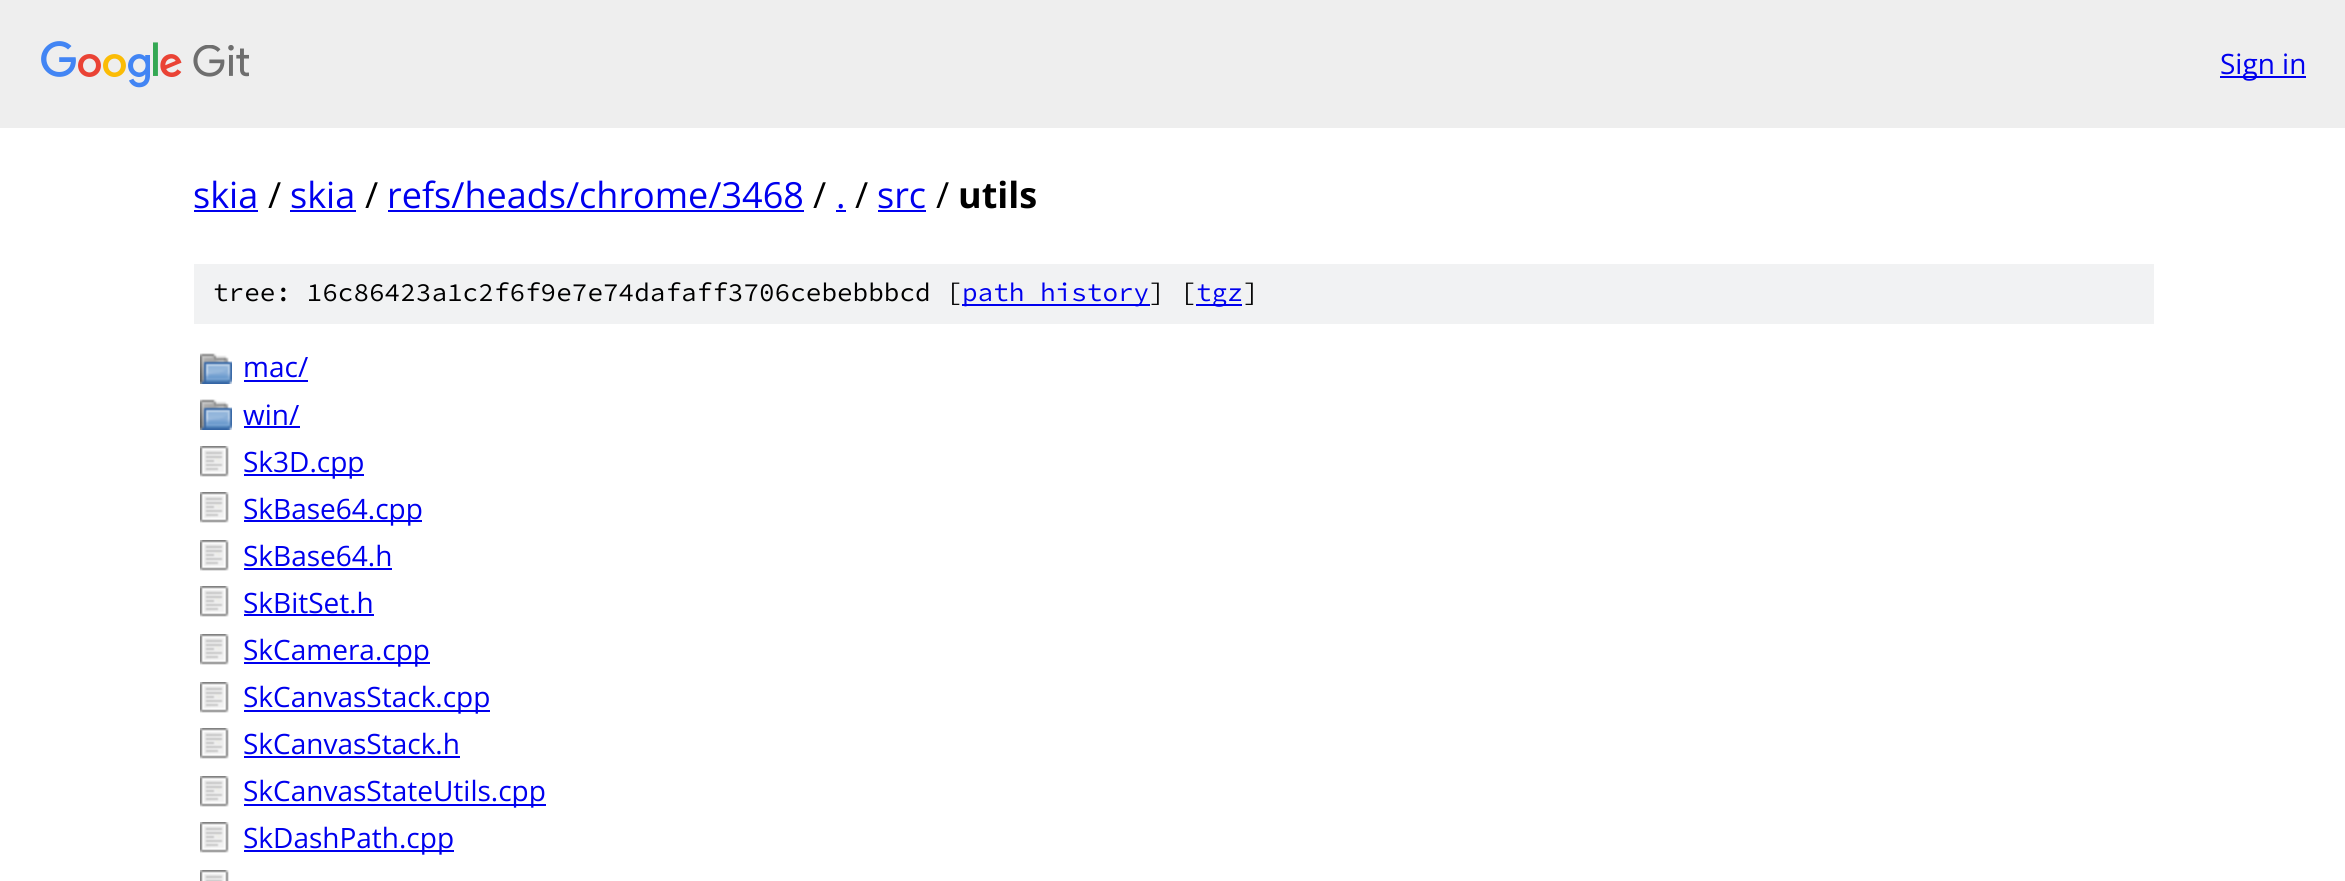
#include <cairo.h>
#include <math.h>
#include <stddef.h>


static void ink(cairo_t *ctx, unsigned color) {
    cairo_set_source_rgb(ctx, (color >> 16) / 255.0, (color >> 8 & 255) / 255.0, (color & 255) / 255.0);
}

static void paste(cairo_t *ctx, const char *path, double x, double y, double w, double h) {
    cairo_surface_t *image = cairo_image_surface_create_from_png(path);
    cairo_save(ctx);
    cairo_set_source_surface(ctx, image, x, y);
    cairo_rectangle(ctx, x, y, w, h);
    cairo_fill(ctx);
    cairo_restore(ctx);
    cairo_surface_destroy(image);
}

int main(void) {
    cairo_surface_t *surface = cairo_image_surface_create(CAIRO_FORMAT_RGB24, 2345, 881);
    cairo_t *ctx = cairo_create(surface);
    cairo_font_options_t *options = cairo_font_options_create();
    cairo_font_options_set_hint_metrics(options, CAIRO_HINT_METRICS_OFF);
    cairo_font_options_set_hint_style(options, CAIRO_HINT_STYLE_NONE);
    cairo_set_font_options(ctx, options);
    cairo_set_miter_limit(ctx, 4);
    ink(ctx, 0xFFFFFF);
    cairo_paint(ctx);
    ink(ctx, 0xEEEEEE);
    cairo_rectangle(ctx, 0, 0, 2345, 128);
    cairo_fill(ctx);
    paste(ctx, "media/1.png", 41, 41, 208, 47);
    ink(ctx, 0x0000EE);
    cairo_rectangle(ctx, 2220, 76, 86, 2);
    cairo_fill(ctx);
    cairo_select_font_face(ctx, "Open Sans", CAIRO_FONT_SLANT_NORMAL, CAIRO_FONT_WEIGHT_NORMAL);
    cairo_set_font_size(ctx, 28);
    cairo_move_to(ctx, 2220, 74);
    cairo_show_text(ctx, "Sign in");
    cairo_set_font_size(ctx, 36);
    cairo_move_to(ctx, 193, 208);
    cairo_show_text(ctx, "skia");
    cairo_rectangle(ctx, 194, 210, 64, 2);
    cairo_fill(ctx);
    ink(ctx, 0x000000);
    cairo_move_to(ctx, 268, 208);
    cairo_show_text(ctx, "/");
    ink(ctx, 0x0000EE);
    cairo_move_to(ctx, 290, 208);
    cairo_show_text(ctx, "skia");
    cairo_rectangle(ctx, 290, 210, 66, 2);
    cairo_fill(ctx);
    ink(ctx, 0x000000);
    cairo_move_to(ctx, 365, 208);
    cairo_show_text(ctx, "/");
    ink(ctx, 0x0000EE);
    cairo_move_to(ctx, 387, 208);
    cairo_show_text(ctx, "refs/heads/chrome/3468");
    cairo_rectangle(ctx, 388, 210, 416, 2);
    cairo_fill(ctx);
    ink(ctx, 0x000000);
    cairo_move_to(ctx, 813, 208);
    cairo_show_text(ctx, "/");
    ink(ctx, 0x0000EE);
    cairo_move_to(ctx, 836, 208);
    cairo_show_text(ctx, ".");
    cairo_rectangle(ctx, 836, 210, 10, 2);
    cairo_fill(ctx);
    ink(ctx, 0x000000);
    cairo_move_to(ctx, 855, 208);
    cairo_show_text(ctx, "/");
    ink(ctx, 0x0000EE);
    cairo_move_to(ctx, 877, 208);
    cairo_show_text(ctx, "src");
    cairo_rectangle(ctx, 878, 210, 48, 2);
    cairo_fill(ctx);
    ink(ctx, 0x000000);
    cairo_move_to(ctx, 936, 208);
    cairo_show_text(ctx, "/");
    cairo_select_font_face(ctx, "Open Sans", CAIRO_FONT_SLANT_NORMAL, CAIRO_FONT_WEIGHT_BOLD);
    cairo_move_to(ctx, 958, 208);
    cairo_show_text(ctx, "utils");
    ink(ctx, 0xF1F2F3);
    cairo_rectangle(ctx, 194, 264, 1960, 60);
    cairo_fill(ctx);
    cairo_select_font_face(ctx, "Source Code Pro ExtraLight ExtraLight", CAIRO_FONT_SLANT_NORMAL, CAIRO_FONT_WEIGHT_NORMAL);
    cairo_set_font_size(ctx, 26);
    ink(ctx, 0x000000);
    cairo_move_to(ctx, 213, 301);
    cairo_show_text(ctx, "tree: 16c86423a1c2f6f9e7e74dafaff3706cebebbbcd [");
    ink(ctx, 0x0000EE);
    cairo_rectangle(ctx, 962, 304, 188, 2);
    cairo_fill(ctx);
    cairo_move_to(ctx, 962, 301);
    cairo_show_text(ctx, "path history");
    ink(ctx, 0x000000);
    cairo_move_to(ctx, 1149, 301);
    cairo_show_text(ctx, "] [");
    ink(ctx, 0x0000EE);
    cairo_rectangle(ctx, 1196, 304, 46, 2);
    cairo_fill(ctx);
    cairo_move_to(ctx, 1196, 301);
    cairo_show_text(ctx, "tgz");
    ink(ctx, 0x000000);
    cairo_move_to(ctx, 1243, 301);
    cairo_show_text(ctx, "]");
    paste(ctx, "media/2.png", 200, 353, 32, 31);
    cairo_select_font_face(ctx, "Open Sans", CAIRO_FONT_SLANT_NORMAL, CAIRO_FONT_WEIGHT_NORMAL);
    cairo_set_font_size(ctx, 28);
    ink(ctx, 0x0000EE);
    cairo_move_to(ctx, 243, 377);
    cairo_show_text(ctx, "mac/");
    cairo_rectangle(ctx, 244, 380, 64, 2);
    cairo_fill(ctx);
    paste(ctx, "media/2.png", 200, 399, 32, 31);
    cairo_move_to(ctx, 243, 425);
    cairo_show_text(ctx, "win/");
    cairo_rectangle(ctx, 244, 426, 56, 2);
    cairo_fill(ctx);
    paste(ctx, "media/3.png", 200, 446, 29, 31);
    cairo_rectangle(ctx, 244, 474, 120, 2);
    cairo_fill(ctx);
    cairo_move_to(ctx, 243, 472);
    cairo_show_text(ctx, "Sk3D.cpp");
    paste(ctx, "media/3.png", 200, 492, 29, 31);
    cairo_rectangle(ctx, 244, 520, 178, 2);
    cairo_fill(ctx);
    cairo_move_to(ctx, 243, 519);
    cairo_show_text(ctx, "SkBase64.cpp");
    paste(ctx, "media/3.png", 200, 540, 29, 31);
    cairo_move_to(ctx, 243, 566);
    cairo_show_text(ctx, "SkBase64.h");
    cairo_rectangle(ctx, 244, 568, 148, 2);
    cairo_fill(ctx);
    paste(ctx, "media/3.png", 200, 586, 29, 31);
    cairo_move_to(ctx, 243, 613);
    cairo_show_text(ctx, "SkBitSet.h");
    cairo_rectangle(ctx, 244, 614, 130, 2);
    cairo_fill(ctx);
    paste(ctx, "media/3.png", 200, 634, 29, 31);
    cairo_rectangle(ctx, 244, 662, 186, 2);
    cairo_fill(ctx);
    cairo_move_to(ctx, 243, 660);
    cairo_show_text(ctx, "SkCamera.cpp");
    paste(ctx, "media/3.png", 200, 682, 29, 31);
    cairo_rectangle(ctx, 244, 710, 246, 2);
    cairo_fill(ctx);
    cairo_move_to(ctx, 243, 707);
    cairo_show_text(ctx, "SkCanvasStack.cpp");
    paste(ctx, "media/3.png", 200, 728, 29, 31);
    cairo_move_to(ctx, 243, 754);
    cairo_show_text(ctx, "SkCanvasStack.h");
    cairo_rectangle(ctx, 244, 756, 216, 2);
    cairo_fill(ctx);
    paste(ctx, "media/3.png", 200, 776, 29, 31);
    cairo_rectangle(ctx, 244, 804, 302, 2);
    cairo_fill(ctx);
    cairo_move_to(ctx, 243, 801);
    cairo_show_text(ctx, "SkCanvasStateUtils.cpp");
    paste(ctx, "media/3.png", 200, 822, 29, 31);
    cairo_rectangle(ctx, 244, 850, 210, 2);
    cairo_fill(ctx);
    cairo_move_to(ctx, 243, 848);
    cairo_show_text(ctx, "SkDashPath.cpp");
    paste(ctx, "media/4.png", 200, 870, 29, 11);
    cairo_surface_write_to_png(surface, "image.png");
    cairo_font_options_destroy(options);
    cairo_destroy(ctx);
    cairo_surface_destroy(surface);
    return 0;
}
